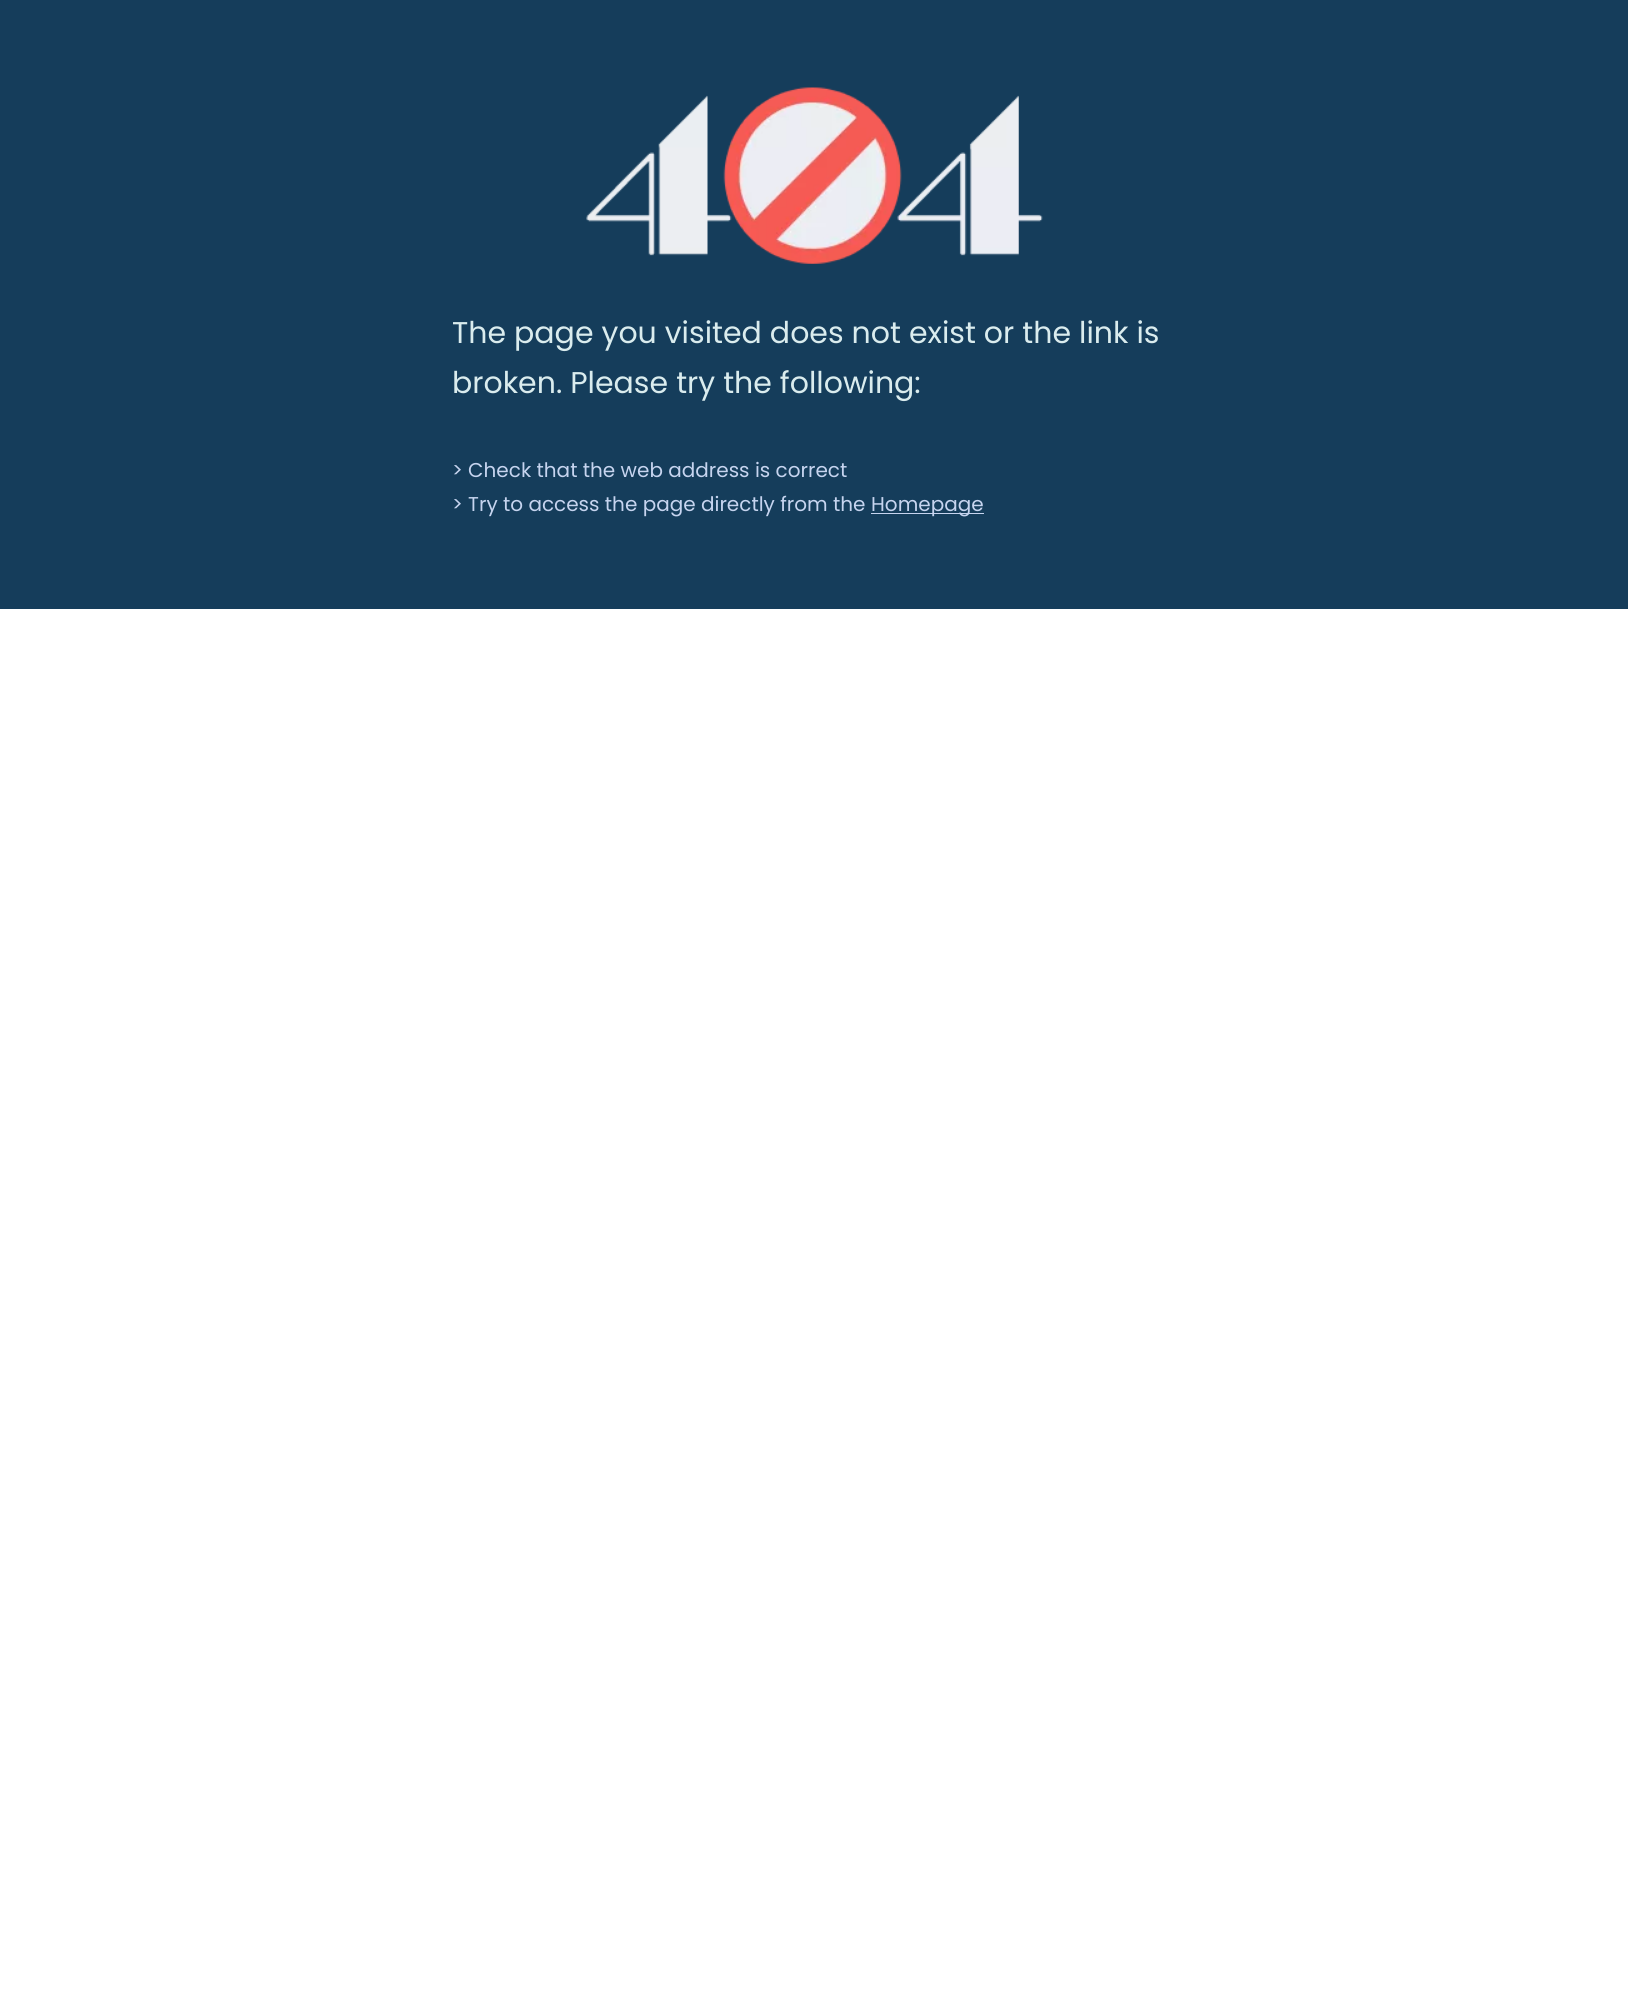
#include <cairo.h>
#include <math.h>
#include <stddef.h>


static void ink(cairo_t *ctx, unsigned color) {
    cairo_set_source_rgb(ctx, (color >> 16) / 255.0, (color >> 8 & 255) / 255.0, (color & 255) / 255.0);
}

static void paste(cairo_t *ctx, const char *path, double x, double y, double w, double h) {
    cairo_surface_t *image = cairo_image_surface_create_from_png(path);
    cairo_save(ctx);
    cairo_set_source_surface(ctx, image, x, y);
    cairo_rectangle(ctx, x, y, w, h);
    cairo_fill(ctx);
    cairo_restore(ctx);
    cairo_surface_destroy(image);
}

int main(void) {
    cairo_surface_t *surface = cairo_image_surface_create(CAIRO_FORMAT_RGB24, 1628, 2000);
    cairo_t *ctx = cairo_create(surface);
    cairo_font_options_t *options = cairo_font_options_create();
    cairo_font_options_set_hint_metrics(options, CAIRO_HINT_METRICS_OFF);
    cairo_font_options_set_hint_style(options, CAIRO_HINT_STYLE_NONE);
    cairo_set_font_options(ctx, options);
    cairo_set_miter_limit(ctx, 4);
    ink(ctx, 0xFFFFFF);
    cairo_paint(ctx);
    ink(ctx, 0x153D5B);
    cairo_rectangle(ctx, 0, 0, 1628, 609);
    cairo_fill(ctx);
    paste(ctx, "media/1.png", 586, 87, 457, 177);
    cairo_select_font_face(ctx, "Poppins", CAIRO_FONT_SLANT_NORMAL, CAIRO_FONT_WEIGHT_NORMAL);
    cairo_set_font_size(ctx, 30);
    ink(ctx, 0xDAECEE);
    cairo_move_to(ctx, 452, 343);
    cairo_show_text(ctx, "The page you visited does not exist or the link is");
    cairo_move_to(ctx, 452, 393);
    cairo_show_text(ctx, "broken. Please try the following:");
    cairo_set_font_size(ctx, 20);
    ink(ctx, 0xC6D4EF);
    cairo_move_to(ctx, 452, 477);
    cairo_show_text(ctx, "> Check that the web address is correct");
    cairo_move_to(ctx, 452, 511);
    cairo_show_text(ctx, "> Try to access the page directly from the");
    cairo_rectangle(ctx, 871, 513, 113, 1);
    cairo_fill(ctx);
    cairo_move_to(ctx, 871, 511);
    cairo_show_text(ctx, "Homepage");
    cairo_surface_write_to_png(surface, "image.png");
    cairo_font_options_destroy(options);
    cairo_destroy(ctx);
    cairo_surface_destroy(surface);
    return 0;
}
